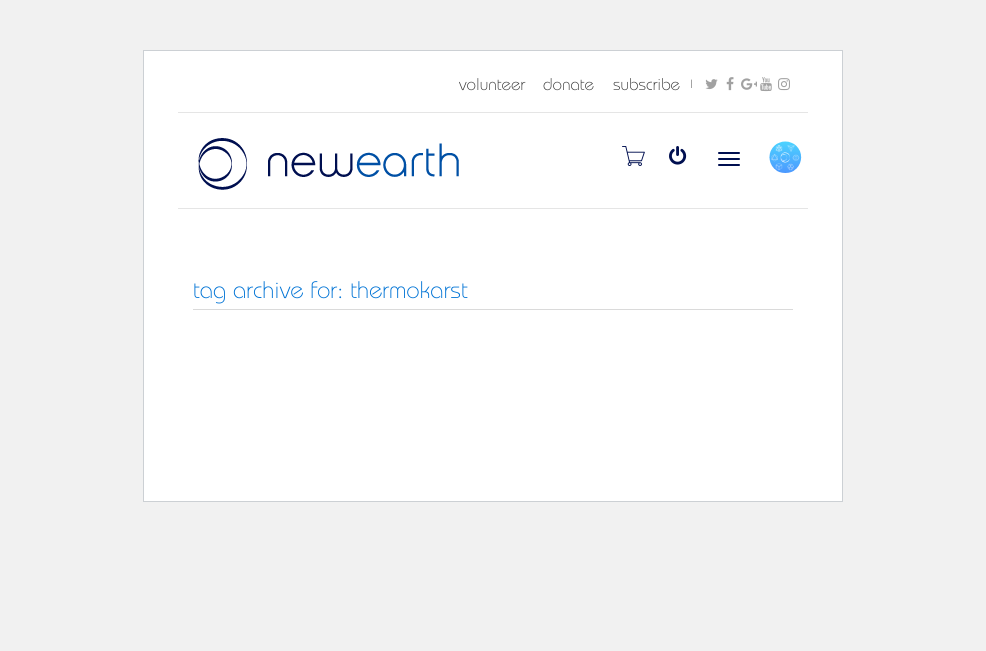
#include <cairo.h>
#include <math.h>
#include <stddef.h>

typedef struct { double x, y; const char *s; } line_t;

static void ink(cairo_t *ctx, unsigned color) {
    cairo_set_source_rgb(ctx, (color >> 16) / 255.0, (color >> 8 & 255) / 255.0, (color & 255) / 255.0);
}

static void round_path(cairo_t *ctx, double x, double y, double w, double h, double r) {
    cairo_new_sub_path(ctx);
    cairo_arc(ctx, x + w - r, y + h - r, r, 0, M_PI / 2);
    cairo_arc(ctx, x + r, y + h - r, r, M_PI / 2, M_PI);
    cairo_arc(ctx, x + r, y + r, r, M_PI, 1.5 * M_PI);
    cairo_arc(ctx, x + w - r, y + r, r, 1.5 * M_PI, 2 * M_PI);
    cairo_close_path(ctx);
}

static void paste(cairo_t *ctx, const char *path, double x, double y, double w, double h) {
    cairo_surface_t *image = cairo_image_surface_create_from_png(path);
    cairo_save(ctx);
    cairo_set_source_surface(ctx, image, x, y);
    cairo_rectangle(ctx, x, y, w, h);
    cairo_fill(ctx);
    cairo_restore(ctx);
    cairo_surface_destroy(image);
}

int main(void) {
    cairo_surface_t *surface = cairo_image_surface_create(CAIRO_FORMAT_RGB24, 986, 651);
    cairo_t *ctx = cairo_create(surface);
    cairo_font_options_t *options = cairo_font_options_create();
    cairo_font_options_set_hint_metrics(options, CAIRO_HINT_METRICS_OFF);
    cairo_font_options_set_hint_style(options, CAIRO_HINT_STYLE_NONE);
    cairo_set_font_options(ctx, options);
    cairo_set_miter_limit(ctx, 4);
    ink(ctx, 0xF1F1F1);
    cairo_paint(ctx);
    ink(ctx, 0xFFFFFF);
    cairo_rectangle(ctx, 143.5, 50.5, 699, 451);
    cairo_fill_preserve(ctx);
    ink(ctx, 0xCCD0D4);
    cairo_set_line_width(ctx, 1);
    cairo_stroke(ctx);
    ink(ctx, 0xE5E5E5);
    cairo_rectangle(ctx, 178, 112, 630, 1);
    cairo_fill(ctx);
    cairo_select_font_face(ctx, "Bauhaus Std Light", CAIRO_FONT_SLANT_NORMAL, CAIRO_FONT_WEIGHT_NORMAL);
    cairo_set_font_size(ctx, 17);
    ink(ctx, 0x333333);
    {
        static const line_t items[] = {
            {459, 90, "volunteer"},
            {543, 90, "donate"},
            {613, 90, "subscribe"},
        };
        for (size_t i = 0; i < sizeof items / sizeof *items; i++) {
            cairo_move_to(ctx, items[i].x, items[i].y);
            cairo_show_text(ctx, items[i].s);
        }
    }
    cairo_set_font_size(ctx, 12);
    ink(ctx, 0x444444);
    cairo_move_to(ctx, 690, 88);
    cairo_show_text(ctx, "|");
    paste(ctx, "media/1.png", 705, 79, 13, 11);
    paste(ctx, "media/2.png", 726, 77, 8, 14);
    paste(ctx, "media/3.png", 741, 78, 16, 12);
    paste(ctx, "media/4.png", 760, 77, 12, 15);
    paste(ctx, "media/5.png", 778, 78, 12, 13);
    ink(ctx, 0xE5E5E5);
    cairo_rectangle(ctx, 178, 208, 630, 1);
    cairo_fill(ctx);
    paste(ctx, "media/6.png", 198, 138, 261, 52);
    paste(ctx, "media/7.png", 622, 146, 23, 20);
    paste(ctx, "media/8.png", 669, 146, 18, 19);
    ink(ctx, 0x000F50);
    round_path(ctx, 718, 152, 22, 2, 1);
    cairo_fill(ctx);
    round_path(ctx, 718, 158, 22, 2, 1);
    cairo_fill(ctx);
    round_path(ctx, 718, 164, 22, 2, 1);
    cairo_fill(ctx);
    paste(ctx, "media/9.png", 769, 141, 33, 32);
    ink(ctx, 0xDADADA);
    cairo_rectangle(ctx, 193, 309, 600, 1);
    cairo_fill(ctx);
    cairo_set_font_size(ctx, 24);
    ink(ctx, 0x0073D5);
    cairo_move_to(ctx, 193, 298);
    cairo_show_text(ctx, "tag archive for: thermokarst");
    cairo_surface_write_to_png(surface, "image.png");
    cairo_font_options_destroy(options);
    cairo_destroy(ctx);
    cairo_surface_destroy(surface);
    return 0;
}
